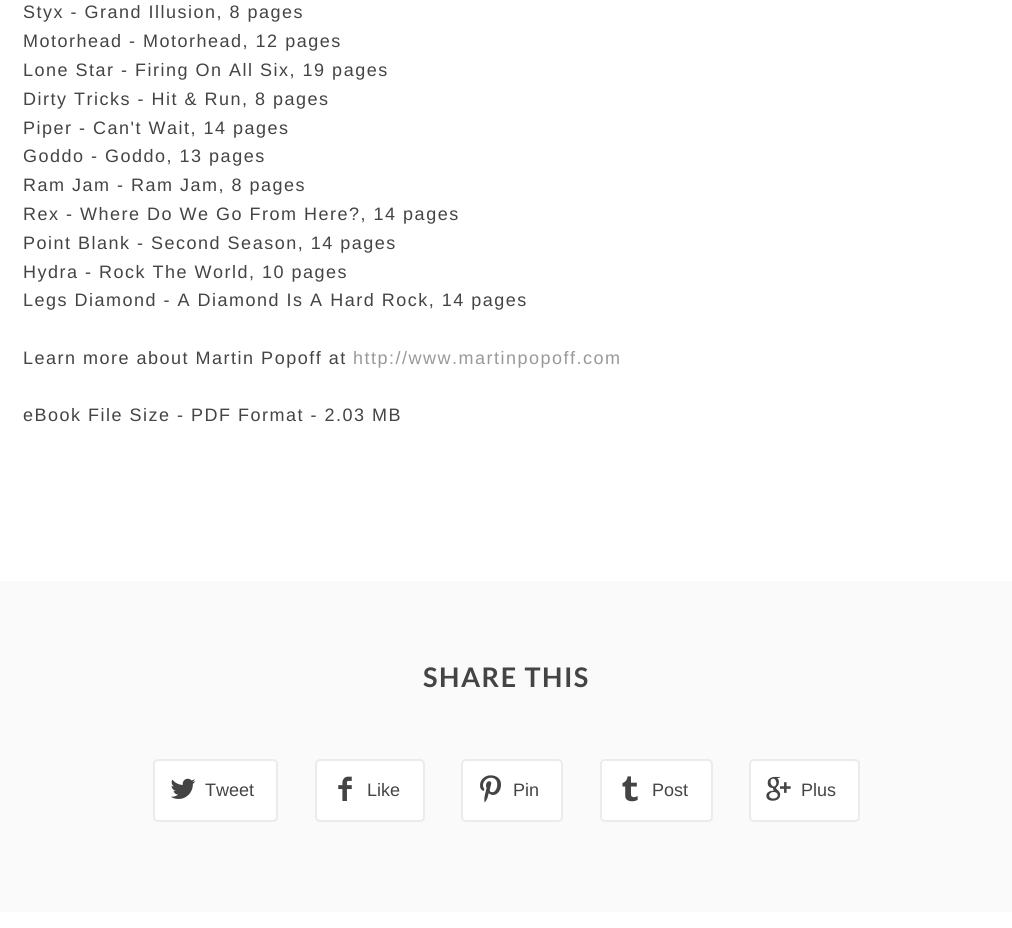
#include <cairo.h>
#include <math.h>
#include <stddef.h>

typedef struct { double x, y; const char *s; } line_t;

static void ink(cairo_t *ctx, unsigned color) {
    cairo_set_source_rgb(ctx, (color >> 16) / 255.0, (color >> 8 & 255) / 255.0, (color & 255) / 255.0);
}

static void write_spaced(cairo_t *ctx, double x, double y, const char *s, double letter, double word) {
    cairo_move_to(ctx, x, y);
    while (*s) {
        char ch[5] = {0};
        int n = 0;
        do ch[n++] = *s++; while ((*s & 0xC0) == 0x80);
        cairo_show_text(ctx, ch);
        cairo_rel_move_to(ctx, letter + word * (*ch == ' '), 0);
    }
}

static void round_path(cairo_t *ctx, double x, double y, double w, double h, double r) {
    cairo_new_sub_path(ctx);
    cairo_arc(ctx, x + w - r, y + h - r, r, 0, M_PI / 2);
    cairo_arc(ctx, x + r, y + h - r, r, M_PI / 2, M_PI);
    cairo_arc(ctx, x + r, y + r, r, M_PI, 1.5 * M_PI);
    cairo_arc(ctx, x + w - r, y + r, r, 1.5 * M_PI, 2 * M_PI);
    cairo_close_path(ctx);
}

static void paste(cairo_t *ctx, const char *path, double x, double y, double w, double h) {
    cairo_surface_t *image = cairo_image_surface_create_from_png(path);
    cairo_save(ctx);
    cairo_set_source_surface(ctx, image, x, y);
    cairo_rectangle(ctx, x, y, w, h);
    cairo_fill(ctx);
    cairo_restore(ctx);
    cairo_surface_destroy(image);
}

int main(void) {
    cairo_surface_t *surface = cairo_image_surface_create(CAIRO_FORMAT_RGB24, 1012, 928);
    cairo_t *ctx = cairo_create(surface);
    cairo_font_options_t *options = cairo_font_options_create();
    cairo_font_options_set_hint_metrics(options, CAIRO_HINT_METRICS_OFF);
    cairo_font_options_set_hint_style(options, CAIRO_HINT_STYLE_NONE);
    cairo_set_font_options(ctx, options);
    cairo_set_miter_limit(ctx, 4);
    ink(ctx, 0xFFFFFF);
    cairo_paint(ctx);
    cairo_select_font_face(ctx, "Liberation Sans", CAIRO_FONT_SLANT_NORMAL, CAIRO_FONT_WEIGHT_NORMAL);
    cairo_set_font_size(ctx, 18);
    ink(ctx, 0x444444);
    {
        static const line_t items[] = {
            {23, 18, "Styx - Grand Illusion, 8 pages"},
            {23, 47, "Motorhead - Motorhead, 12 pages"},
            {23, 76, "Lone Star - Firing On All Six, 19 pages"},
            {23, 105, "Dirty Tricks - Hit & Run, 8 pages"},
            {23, 134, "Piper - Can't Wait, 14 pages"},
            {23, 162, "Goddo - Goddo, 13 pages"},
            {23, 191, "Ram Jam - Ram Jam, 8 pages"},
            {23, 220, "Rex - Where Do We Go From Here?, 14 pages"},
            {23, 249, "Point Blank - Second Season, 14 pages"},
            {23, 278, "Hydra - Rock The World, 10 pages"},
            {23, 306, "Legs Diamond - A Diamond Is A Hard Rock, 14 pages"},
            {23, 364, "Learn more about Martin Popoff at"},
        };
        for (size_t i = 0; i < sizeof items / sizeof *items; i++) {
            write_spaced(ctx, items[i].x, items[i].y, items[i].s, 1.5, 0);
        }
    }
    ink(ctx, 0x999999);
    write_spaced(ctx, 353, 364, "http://www.martinpopoff.com", 1.5, 0);
    ink(ctx, 0x444444);
    write_spaced(ctx, 23, 421, "eBook File Size - PDF Format - 2.03 MB", 1.5, 0);
    ink(ctx, 0xFAFAFA);
    cairo_rectangle(ctx, 0, 581, 1012, 331);
    cairo_fill(ctx);
    cairo_select_font_face(ctx, "Lato", CAIRO_FONT_SLANT_NORMAL, CAIRO_FONT_WEIGHT_BOLD);
    cairo_set_font_size(ctx, 27);
    ink(ctx, 0x444444);
    write_spaced(ctx, 423, 687, "SHARE THIS", 1.5, 0);
    ink(ctx, 0xFFFFFF);
    round_path(ctx, 154, 760, 123, 61, 4);
    cairo_fill_preserve(ctx);
    ink(ctx, 0xEBEBEB);
    cairo_stroke(ctx);
    paste(ctx, "media/1.png", 170, 778, 26, 21);
    cairo_select_font_face(ctx, "Liberation Sans", CAIRO_FONT_SLANT_NORMAL, CAIRO_FONT_WEIGHT_NORMAL);
    cairo_set_font_size(ctx, 18);
    ink(ctx, 0x444444);
    cairo_move_to(ctx, 205, 796);
    cairo_show_text(ctx, "Tweet");
    ink(ctx, 0xFFFFFF);
    round_path(ctx, 316, 760, 108, 61, 4);
    cairo_fill_preserve(ctx);
    ink(ctx, 0xEBEBEB);
    cairo_stroke(ctx);
    paste(ctx, "media/2.png", 338, 776, 14, 25);
    ink(ctx, 0x444444);
    cairo_move_to(ctx, 367, 796);
    cairo_show_text(ctx, "Like");
    ink(ctx, 0xFFFFFF);
    round_path(ctx, 462, 760, 100, 61, 4);
    cairo_fill_preserve(ctx);
    ink(ctx, 0xEBEBEB);
    cairo_stroke(ctx);
    paste(ctx, "media/3.png", 480, 775, 21, 28);
    ink(ctx, 0x444444);
    cairo_move_to(ctx, 513, 796);
    cairo_show_text(ctx, "Pin");
    ink(ctx, 0xFFFFFF);
    round_path(ctx, 601, 760, 111, 61, 4);
    cairo_fill_preserve(ctx);
    ink(ctx, 0xEBEBEB);
    cairo_stroke(ctx);
    paste(ctx, "media/4.png", 622, 776, 16, 26);
    ink(ctx, 0x444444);
    cairo_move_to(ctx, 652, 796);
    cairo_show_text(ctx, "Post");
    ink(ctx, 0xFFFFFF);
    round_path(ctx, 750, 760, 109, 61, 4);
    cairo_fill_preserve(ctx);
    ink(ctx, 0xEBEBEB);
    cairo_stroke(ctx);
    paste(ctx, "media/5.png", 766, 776, 25, 25);
    ink(ctx, 0x444444);
    cairo_move_to(ctx, 801, 796);
    cairo_show_text(ctx, "Plus");
    cairo_surface_write_to_png(surface, "image.png");
    cairo_font_options_destroy(options);
    cairo_destroy(ctx);
    cairo_surface_destroy(surface);
    return 0;
}
